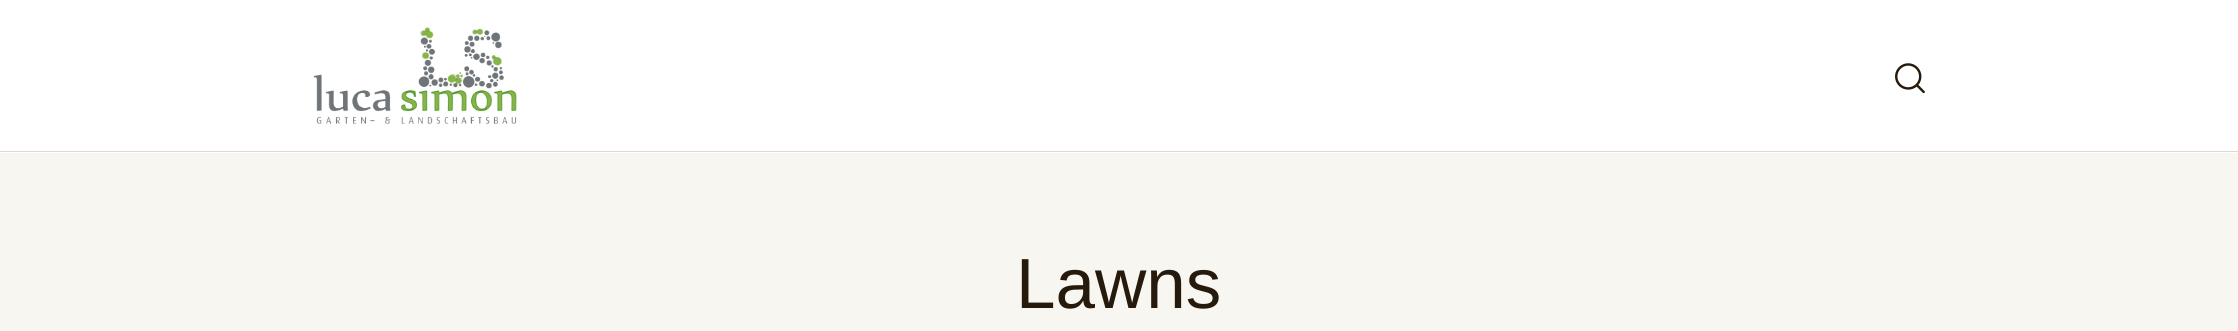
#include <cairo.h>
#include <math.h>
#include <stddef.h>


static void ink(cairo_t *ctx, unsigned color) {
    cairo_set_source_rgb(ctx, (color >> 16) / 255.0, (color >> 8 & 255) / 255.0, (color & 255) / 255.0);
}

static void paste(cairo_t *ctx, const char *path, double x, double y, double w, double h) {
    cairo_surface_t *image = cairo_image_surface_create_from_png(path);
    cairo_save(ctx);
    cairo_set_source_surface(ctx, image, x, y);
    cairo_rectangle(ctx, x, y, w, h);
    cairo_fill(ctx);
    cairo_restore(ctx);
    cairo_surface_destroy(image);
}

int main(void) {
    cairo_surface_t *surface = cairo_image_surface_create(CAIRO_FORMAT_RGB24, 2238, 331);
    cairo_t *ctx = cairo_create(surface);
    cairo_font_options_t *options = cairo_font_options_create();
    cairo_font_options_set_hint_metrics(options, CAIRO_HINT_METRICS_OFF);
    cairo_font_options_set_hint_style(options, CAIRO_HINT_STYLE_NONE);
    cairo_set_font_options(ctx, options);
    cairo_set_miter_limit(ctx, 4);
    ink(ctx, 0xFFFFFF);
    cairo_paint(ctx);
    ink(ctx, 0xDDD9D0);
    cairo_rectangle(ctx, 0, 151, 2238, 1);
    cairo_fill(ctx);
    paste(ctx, "media/1.png", 313, 27, 204, 97);
    paste(ctx, "media/2.png", 1895, 63, 30, 31);
    ink(ctx, 0xF7F6F1);
    cairo_rectangle(ctx, 0, 153, 2238, 178);
    cairo_fill(ctx);
    cairo_select_font_face(ctx, "Liberation Sans", CAIRO_FONT_SLANT_NORMAL, CAIRO_FONT_WEIGHT_NORMAL);
    cairo_set_font_size(ctx, 71);
    ink(ctx, 0x261A0C);
    cairo_move_to(ctx, 1016, 308);
    cairo_show_text(ctx, "Lawns");
    cairo_surface_write_to_png(surface, "image.png");
    cairo_font_options_destroy(options);
    cairo_destroy(ctx);
    cairo_surface_destroy(surface);
    return 0;
}
